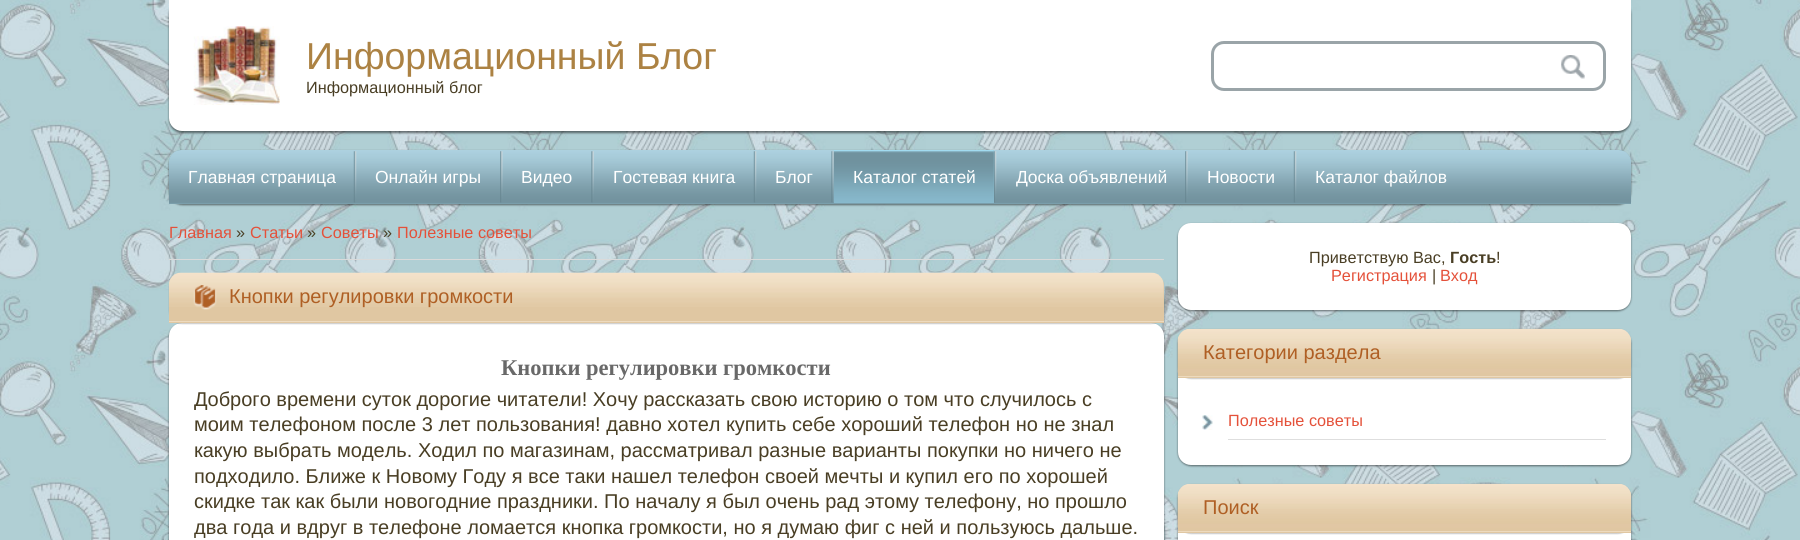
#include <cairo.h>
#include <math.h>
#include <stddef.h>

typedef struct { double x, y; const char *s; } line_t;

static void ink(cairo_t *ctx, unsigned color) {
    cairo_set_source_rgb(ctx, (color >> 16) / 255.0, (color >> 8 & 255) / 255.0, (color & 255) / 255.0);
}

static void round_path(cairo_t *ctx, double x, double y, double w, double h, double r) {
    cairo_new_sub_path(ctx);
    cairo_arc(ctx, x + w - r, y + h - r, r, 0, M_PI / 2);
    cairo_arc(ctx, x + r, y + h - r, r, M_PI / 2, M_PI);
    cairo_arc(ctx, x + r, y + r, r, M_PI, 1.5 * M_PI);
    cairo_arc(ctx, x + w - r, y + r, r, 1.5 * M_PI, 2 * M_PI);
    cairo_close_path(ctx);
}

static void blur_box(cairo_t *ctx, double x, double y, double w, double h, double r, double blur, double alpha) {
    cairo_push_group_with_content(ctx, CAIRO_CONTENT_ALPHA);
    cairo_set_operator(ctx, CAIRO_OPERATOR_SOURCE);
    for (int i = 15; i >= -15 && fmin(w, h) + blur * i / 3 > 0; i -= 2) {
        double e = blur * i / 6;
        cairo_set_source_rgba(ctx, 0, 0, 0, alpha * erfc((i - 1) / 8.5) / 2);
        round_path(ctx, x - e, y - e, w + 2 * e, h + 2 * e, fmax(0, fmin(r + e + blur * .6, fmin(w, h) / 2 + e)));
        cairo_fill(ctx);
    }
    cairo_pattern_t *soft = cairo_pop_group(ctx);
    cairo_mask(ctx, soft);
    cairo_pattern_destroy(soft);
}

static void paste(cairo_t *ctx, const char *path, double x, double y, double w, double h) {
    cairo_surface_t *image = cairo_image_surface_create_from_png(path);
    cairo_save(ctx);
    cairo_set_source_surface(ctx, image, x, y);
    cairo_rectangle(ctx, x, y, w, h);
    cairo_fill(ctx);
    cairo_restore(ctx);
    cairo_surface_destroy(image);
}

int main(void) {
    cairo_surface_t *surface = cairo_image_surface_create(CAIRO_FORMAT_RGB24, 1800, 540);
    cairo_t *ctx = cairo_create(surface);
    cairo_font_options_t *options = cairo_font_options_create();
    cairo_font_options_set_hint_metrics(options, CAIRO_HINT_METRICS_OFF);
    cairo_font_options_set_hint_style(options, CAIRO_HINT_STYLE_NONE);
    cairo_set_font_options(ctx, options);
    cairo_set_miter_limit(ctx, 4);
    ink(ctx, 0xFFFFFF);
    cairo_paint(ctx);
    paste(ctx, "media/1.png", 0, 0, 1800, 540);
    ink(ctx, 0x000000);
    blur_box(ctx, 169, 1, 1462, 132, 13, 1, 0.5);
    ink(ctx, 0xFFFFFF);
    cairo_new_path(ctx);
    cairo_move_to(ctx, 169, 0);
    cairo_line_to(ctx, 1631, 0);
    cairo_line_to(ctx, 1631, 118);
    cairo_curve_to(ctx, 1631, 125, 1625, 131, 1618, 131);
    cairo_line_to(ctx, 182, 131);
    cairo_curve_to(ctx, 175, 131, 169, 125, 169, 118);
    cairo_close_path(ctx);
    cairo_fill(ctx);
    paste(ctx, "media/2.png", 193, 26, 87, 79);
    cairo_select_font_face(ctx, "Liberation Sans", CAIRO_FONT_SLANT_NORMAL, CAIRO_FONT_WEIGHT_NORMAL);
    cairo_set_font_size(ctx, 37.5);
    ink(ctx, 0xAC8243);
    cairo_move_to(ctx, 306, 69);
    cairo_show_text(ctx, "Информационный Блог");
    cairo_set_font_size(ctx, 16.25);
    ink(ctx, 0x493E24);
    cairo_move_to(ctx, 306, 93);
    cairo_show_text(ctx, "Информационный блог");
    round_path(ctx, 1212.5, 42.5, 392, 47, 11.5);
    ink(ctx, 0x9AA4A8);
    cairo_set_line_width(ctx, 3);
    cairo_stroke(ctx);
    paste(ctx, "media/3.png", 1561, 55, 24, 24);
    ink(ctx, 0x000000);
    blur_box(ctx, 169, 151, 1462, 54, 13, 1, 0.5);
    ink(ctx, 0x7394A0);
    cairo_new_path(ctx);
    cairo_move_to(ctx, 182, 150);
    cairo_line_to(ctx, 1618, 150);
    cairo_curve_to(ctx, 1625, 150, 1631, 156, 1631, 163);
    cairo_line_to(ctx, 1631, 204);
    cairo_line_to(ctx, 169, 204);
    cairo_line_to(ctx, 169, 163);
    cairo_curve_to(ctx, 169, 156, 175, 150, 182, 150);
    cairo_close_path(ctx);
    cairo_fill(ctx);
    paste(ctx, "media/4.png", 169, 150, 1463, 52);
    ink(ctx, 0x7A9EAB);
    cairo_rectangle(ctx, 169, 203, 1462, 1);
    cairo_fill(ctx);
    cairo_set_font_size(ctx, 17.5);
    ink(ctx, 0xFFFFFF);
    cairo_move_to(ctx, 188, 183);
    cairo_show_text(ctx, "Главная страница");
    paste(ctx, "media/5.png", 353, 151, 4, 52);
    cairo_move_to(ctx, 375, 183);
    cairo_show_text(ctx, "Онлайн игры");
    paste(ctx, "media/6.png", 500, 151, 3, 52);
    cairo_move_to(ctx, 521, 183);
    cairo_show_text(ctx, "Видео");
    paste(ctx, "media/7.png", 591, 151, 3, 52);
    cairo_move_to(ctx, 613, 183);
    cairo_show_text(ctx, "Гостевая книга");
    paste(ctx, "media/5.png", 753, 151, 4, 52);
    cairo_move_to(ctx, 775, 183);
    cairo_show_text(ctx, "Блог");
    paste(ctx, "media/7.png", 831, 151, 3, 52);
    ink(ctx, 0x88B9CC);
    cairo_rectangle(ctx, 834, 150, 160, 53);
    cairo_fill(ctx);
    paste(ctx, "media/8.png", 833, 150, 161, 53);
    ink(ctx, 0xFFFFFF);
    cairo_move_to(ctx, 853, 183);
    cairo_show_text(ctx, "Каталог статей");
    paste(ctx, "media/9.png", 994, 151, 3, 52);
    cairo_move_to(ctx, 1016, 183);
    cairo_show_text(ctx, "Доска объявлений");
    paste(ctx, "media/6.png", 1185, 151, 3, 52);
    cairo_move_to(ctx, 1207, 183);
    cairo_show_text(ctx, "Новости");
    paste(ctx, "media/5.png", 1293, 151, 4, 52);
    cairo_move_to(ctx, 1315, 183);
    cairo_show_text(ctx, "Каталог файлов");
    cairo_set_font_size(ctx, 16.25);
    ink(ctx, 0xE4513A);
    cairo_move_to(ctx, 169, 238);
    cairo_show_text(ctx, "Главная");
    ink(ctx, 0x493E24);
    cairo_move_to(ctx, 236, 238);
    cairo_show_text(ctx, "»");
    ink(ctx, 0xE4513A);
    cairo_move_to(ctx, 250, 238);
    cairo_show_text(ctx, "Статьи");
    ink(ctx, 0x493E24);
    cairo_move_to(ctx, 307, 238);
    cairo_show_text(ctx, "»");
    ink(ctx, 0xE4513A);
    cairo_move_to(ctx, 321, 238);
    cairo_show_text(ctx, "Советы");
    ink(ctx, 0x493E24);
    cairo_move_to(ctx, 383, 238);
    cairo_show_text(ctx, "»");
    ink(ctx, 0xE4513A);
    cairo_move_to(ctx, 397, 238);
    cairo_show_text(ctx, "Полезные советы");
    ink(ctx, 0xDADADA);
    cairo_rectangle(ctx, 169, 259, 995, 1);
    cairo_fill(ctx);
    ink(ctx, 0x000000);
    blur_box(ctx, 169, 324, 995, 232, 13, 1, 0.5);
    ink(ctx, 0xFFFFFF);
    round_path(ctx, 169, 323, 995, 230, 13);
    cairo_fill(ctx);
    ink(ctx, 0x000000);
    blur_box(ctx, 169, 274, 995, 50, 13, 0.5, 0.2);
    ink(ctx, 0xE0C7A2);
    cairo_new_path(ctx);
    cairo_move_to(ctx, 182, 273);
    cairo_line_to(ctx, 1151, 273);
    cairo_curve_to(ctx, 1158, 273, 1164, 279, 1164, 286);
    cairo_line_to(ctx, 1164, 323);
    cairo_line_to(ctx, 169, 323);
    cairo_line_to(ctx, 169, 286);
    cairo_curve_to(ctx, 169, 279, 175, 273, 182, 273);
    cairo_close_path(ctx);
    cairo_fill(ctx);
    paste(ctx, "media/10.png", 168, 272, 996, 35);
    ink(ctx, 0xEDDABE);
    cairo_rectangle(ctx, 169, 321, 995, 1);
    cairo_fill(ctx);
    paste(ctx, "media/11.png", 193, 285, 24, 25);
    cairo_set_font_size(ctx, 20);
    ink(ctx, 0xAF5F24);
    cairo_move_to(ctx, 229, 303);
    cairo_show_text(ctx, "Кнопки регулировки громкости");
    cairo_select_font_face(ctx, "Liberation Serif", CAIRO_FONT_SLANT_NORMAL, CAIRO_FONT_WEIGHT_BOLD);
    cairo_set_font_size(ctx, 22.5);
    ink(ctx, 0x696969);
    cairo_move_to(ctx, 501, 375);
    cairo_show_text(ctx, "Кнопки регулировки громкости");
    cairo_select_font_face(ctx, "Liberation Sans", CAIRO_FONT_SLANT_NORMAL, CAIRO_FONT_WEIGHT_NORMAL);
    cairo_set_font_size(ctx, 20);
    ink(ctx, 0x493E24);
    {
        static const line_t items[] = {
            {194, 406, "Доброго времени суток дорогие читатели! Хочу рассказать свою историю о том что случилось с"},
            {194, 431, "моим телефоном после 3 лет пользования! давно хотел купить себе хороший телефон но не знал"},
            {194, 457, "какую выбрать модель. Ходил по магазинам, рассматривал разные варианты покупки но ничего не"},
            {194, 483, "подходило. Ближе к Новому Году я все таки нашел телефон своей мечты и купил его по хорошей"},
            {194, 508, "скидке так как были новогодние праздники. По началу я был очень рад этому телефону, но прошло"},
            {194, 534, "два года и вдруг в телефоне ломается кнопка громкости, но я думаю фиг с ней и пользуюсь дальше."},
        };
        for (size_t i = 0; i < sizeof items / sizeof *items; i++) {
            cairo_move_to(ctx, items[i].x, items[i].y);
            cairo_show_text(ctx, items[i].s);
        }
    }
    ink(ctx, 0x000000);
    blur_box(ctx, 1178, 224, 453, 87, 13, 1, 0.5);
    ink(ctx, 0xFFFFFF);
    round_path(ctx, 1178, 223, 453, 87, 13);
    cairo_fill(ctx);
    cairo_set_font_size(ctx, 16.25);
    ink(ctx, 0x493E24);
    cairo_move_to(ctx, 1309, 263);
    cairo_show_text(ctx, "Приветствую Вас,");
    cairo_select_font_face(ctx, "Liberation Sans", CAIRO_FONT_SLANT_NORMAL, CAIRO_FONT_WEIGHT_BOLD);
    cairo_move_to(ctx, 1450, 263);
    cairo_show_text(ctx, "Гость");
    cairo_select_font_face(ctx, "Liberation Sans", CAIRO_FONT_SLANT_NORMAL, CAIRO_FONT_WEIGHT_NORMAL);
    cairo_move_to(ctx, 1496, 263);
    cairo_show_text(ctx, "!");
    ink(ctx, 0xE4513A);
    cairo_move_to(ctx, 1331, 281);
    cairo_show_text(ctx, "Регистрация");
    ink(ctx, 0x493E24);
    cairo_move_to(ctx, 1432, 281);
    cairo_show_text(ctx, "|");
    ink(ctx, 0xE4513A);
    cairo_move_to(ctx, 1440, 281);
    cairo_show_text(ctx, "Вход");
    ink(ctx, 0x000000);
    blur_box(ctx, 1178, 330, 453, 136, 13, 1, 0.5);
    ink(ctx, 0xFFFFFF);
    round_path(ctx, 1178, 329, 453, 136, 13);
    cairo_fill(ctx);
    ink(ctx, 0x000000);
    blur_box(ctx, 1178, 330, 453, 49, 13, 0.5, 0.2);
    ink(ctx, 0xE0C7A2);
    cairo_new_path(ctx);
    cairo_move_to(ctx, 1191, 329);
    cairo_line_to(ctx, 1618, 329);
    cairo_curve_to(ctx, 1625, 329, 1631, 335, 1631, 342);
    cairo_line_to(ctx, 1631, 378);
    cairo_line_to(ctx, 1178, 378);
    cairo_line_to(ctx, 1178, 342);
    cairo_curve_to(ctx, 1178, 335, 1184, 329, 1191, 329);
    cairo_close_path(ctx);
    cairo_fill(ctx);
    paste(ctx, "media/12.png", 1177, 328, 455, 45);
    ink(ctx, 0xEDDABE);
    cairo_rectangle(ctx, 1178, 376, 453, 1);
    cairo_fill(ctx);
    cairo_set_font_size(ctx, 20);
    ink(ctx, 0xAF5F24);
    cairo_move_to(ctx, 1203, 359);
    cairo_show_text(ctx, "Категории раздела");
    paste(ctx, "media/13.png", 1202, 415, 11, 15);
    ink(ctx, 0xDEDEDE);
    cairo_rectangle(ctx, 1228, 439, 378, 1);
    cairo_fill(ctx);
    cairo_set_font_size(ctx, 16.25);
    ink(ctx, 0xE4513A);
    cairo_move_to(ctx, 1228, 426);
    cairo_show_text(ctx, "Полезные советы");
    ink(ctx, 0x000000);
    blur_box(ctx, 1178, 485, 453, 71, 13, 1, 0.5);
    ink(ctx, 0xFFFFFF);
    round_path(ctx, 1178, 484, 453, 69, 13);
    cairo_fill(ctx);
    ink(ctx, 0x000000);
    blur_box(ctx, 1178, 485, 453, 49, 13, 0.5, 0.2);
    ink(ctx, 0xE0C7A2);
    cairo_new_path(ctx);
    cairo_move_to(ctx, 1191, 484);
    cairo_line_to(ctx, 1618, 484);
    cairo_curve_to(ctx, 1625, 484, 1631, 490, 1631, 497);
    cairo_line_to(ctx, 1631, 533);
    cairo_line_to(ctx, 1178, 533);
    cairo_line_to(ctx, 1178, 497);
    cairo_curve_to(ctx, 1178, 490, 1184, 484, 1191, 484);
    cairo_close_path(ctx);
    cairo_fill(ctx);
    paste(ctx, "media/14.png", 1177, 483, 455, 45);
    ink(ctx, 0xEDDABE);
    cairo_rectangle(ctx, 1178, 531, 453, 1);
    cairo_fill(ctx);
    cairo_set_font_size(ctx, 20);
    ink(ctx, 0xAF5F24);
    cairo_move_to(ctx, 1203, 514);
    cairo_show_text(ctx, "Поиск");
    cairo_surface_write_to_png(surface, "image.png");
    cairo_font_options_destroy(options);
    cairo_destroy(ctx);
    cairo_surface_destroy(surface);
    return 0;
}
